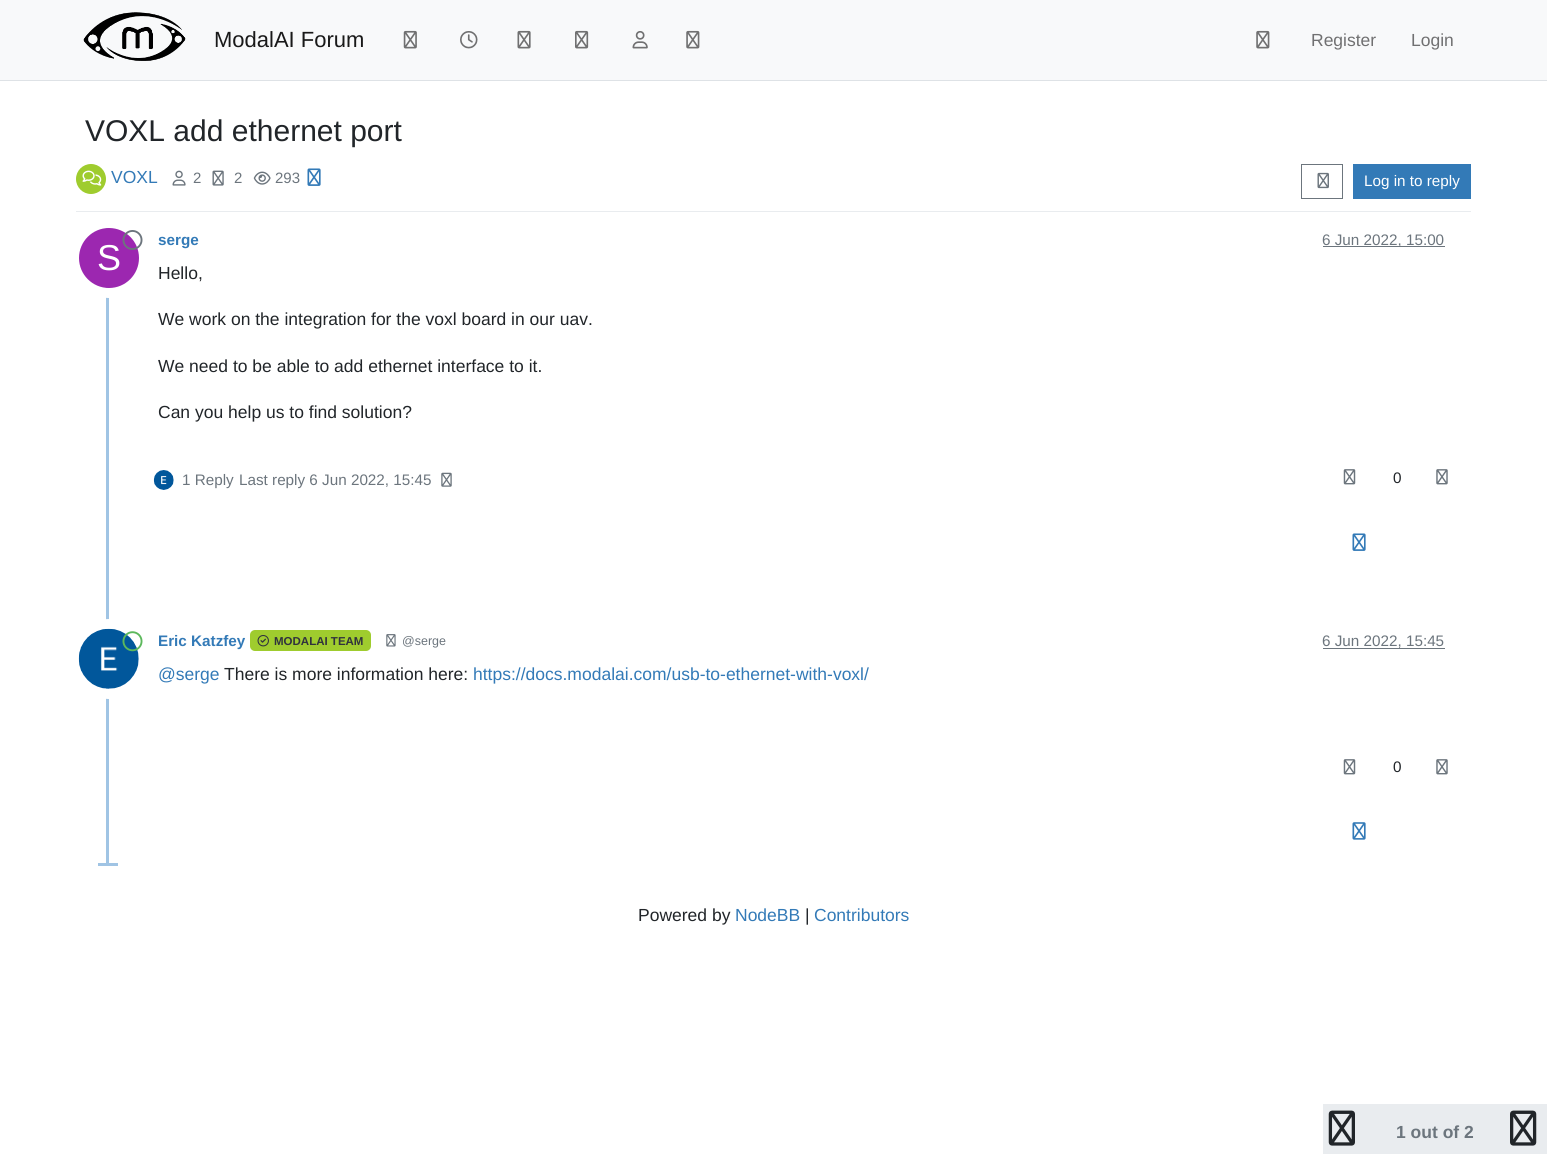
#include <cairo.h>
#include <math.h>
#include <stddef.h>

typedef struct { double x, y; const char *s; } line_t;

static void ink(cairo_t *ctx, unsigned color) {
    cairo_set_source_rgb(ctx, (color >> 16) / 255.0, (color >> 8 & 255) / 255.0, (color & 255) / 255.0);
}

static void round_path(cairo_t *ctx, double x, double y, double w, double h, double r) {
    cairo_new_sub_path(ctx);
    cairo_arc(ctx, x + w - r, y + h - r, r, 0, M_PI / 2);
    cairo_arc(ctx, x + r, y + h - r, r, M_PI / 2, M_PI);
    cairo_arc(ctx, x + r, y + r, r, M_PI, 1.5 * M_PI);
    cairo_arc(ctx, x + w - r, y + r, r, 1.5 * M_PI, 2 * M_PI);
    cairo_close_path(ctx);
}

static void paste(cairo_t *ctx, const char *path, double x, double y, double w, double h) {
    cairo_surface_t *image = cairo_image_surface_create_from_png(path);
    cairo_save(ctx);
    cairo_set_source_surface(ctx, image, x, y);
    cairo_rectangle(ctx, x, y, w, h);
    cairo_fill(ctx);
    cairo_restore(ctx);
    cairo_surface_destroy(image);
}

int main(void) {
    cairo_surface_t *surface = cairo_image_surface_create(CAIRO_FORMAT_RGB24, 1547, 1154);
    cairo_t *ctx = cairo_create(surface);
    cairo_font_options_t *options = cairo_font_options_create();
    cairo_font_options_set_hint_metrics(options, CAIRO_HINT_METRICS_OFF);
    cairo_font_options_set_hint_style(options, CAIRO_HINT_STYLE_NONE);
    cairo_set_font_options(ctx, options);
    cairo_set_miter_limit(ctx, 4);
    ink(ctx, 0xFFFFFF);
    cairo_paint(ctx);
    ink(ctx, 0xF8F9FA);
    cairo_rectangle(ctx, 0, 0, 1547, 80);
    cairo_fill(ctx);
    ink(ctx, 0xDEE2E6);
    cairo_rectangle(ctx, 0, 80, 1547, 1);
    cairo_fill(ctx);
    paste(ctx, "media/1.png", 83, 12, 103, 49);
    cairo_select_font_face(ctx, "Liberation Sans", CAIRO_FONT_SLANT_NORMAL, CAIRO_FONT_WEIGHT_NORMAL);
    cairo_set_font_size(ctx, 22);
    ink(ctx, 0x191919);
    cairo_move_to(ctx, 214, 47);
    cairo_show_text(ctx, "ModalAI Forum");
    paste(ctx, "media/2.png", 403, 30, 14, 19);
    paste(ctx, "media/3.png", 460, 31, 18, 18);
    paste(ctx, "media/4.png", 517, 30, 14, 19);
    paste(ctx, "media/5.png", 575, 30, 14, 19);
    paste(ctx, "media/6.png", 632, 31, 16, 18);
    paste(ctx, "media/7.png", 686, 30, 14, 19);
    paste(ctx, "media/7.png", 1256, 30, 14, 19);
    cairo_set_font_size(ctx, 17.5);
    ink(ctx, 0x707071);
    cairo_move_to(ctx, 1311, 46);
    cairo_show_text(ctx, "Register");
    cairo_move_to(ctx, 1411, 46);
    cairo_show_text(ctx, "Login");
    cairo_set_font_size(ctx, 30);
    ink(ctx, 0x212529);
    cairo_move_to(ctx, 85, 141);
    cairo_show_text(ctx, "VOXL add ethernet port");
    ink(ctx, 0xE9ECEF);
    cairo_rectangle(ctx, 76, 211, 1395, 1);
    cairo_fill(ctx);
    ink(ctx, 0x9FCC2E);
    cairo_arc(ctx, 91, 179, 15, 0, 2 * M_PI);
    cairo_fill(ctx);
    paste(ctx, "media/8.png", 82, 170, 20, 16);
    cairo_set_font_size(ctx, 17.5);
    ink(ctx, 0x337AB7);
    cairo_move_to(ctx, 111, 183);
    cairo_show_text(ctx, "VOXL");
    paste(ctx, "media/9.png", 172, 170, 14, 16);
    cairo_set_font_size(ctx, 15);
    ink(ctx, 0x6C757D);
    cairo_move_to(ctx, 193, 183);
    cairo_show_text(ctx, "2");
    paste(ctx, "media/10.png", 212, 170, 12, 16);
    cairo_move_to(ctx, 234, 183);
    cairo_show_text(ctx, "2");
    paste(ctx, "media/11.png", 253, 171, 18, 14);
    cairo_move_to(ctx, 275, 183);
    cairo_show_text(ctx, "293");
    paste(ctx, "media/12.png", 307, 168, 14, 18);
    cairo_rectangle(ctx, 1301.5, 164.5, 41, 34);
    cairo_set_line_width(ctx, 1);
    cairo_stroke(ctx);
    paste(ctx, "media/13.png", 1317, 172, 12, 17);
    ink(ctx, 0x337AB7);
    cairo_rectangle(ctx, 1353, 164, 118, 35);
    cairo_fill(ctx);
    cairo_set_font_size(ctx, 15.25);
    ink(ctx, 0xFFFFFF);
    cairo_move_to(ctx, 1364, 186);
    cairo_show_text(ctx, "Log in to reply");
    ink(ctx, 0xA0C4E4);
    cairo_rectangle(ctx, 106, 225, 3, 640);
    cairo_fill(ctx);
    cairo_select_font_face(ctx, "Liberation Sans", CAIRO_FONT_SLANT_NORMAL, CAIRO_FONT_WEIGHT_BOLD);
    ink(ctx, 0x337AB7);
    cairo_move_to(ctx, 158, 245);
    cairo_show_text(ctx, "serge");
    ink(ctx, 0x6C757D);
    cairo_rectangle(ctx, 1323, 246, 122, 1);
    cairo_fill(ctx);
    cairo_select_font_face(ctx, "Liberation Sans", CAIRO_FONT_SLANT_NORMAL, CAIRO_FONT_WEIGHT_NORMAL);
    cairo_move_to(ctx, 1322, 245);
    cairo_show_text(ctx, "6 Jun 2022, 15:00");
    cairo_new_path(ctx);
    cairo_arc(ctx, 109, 258, 35, 0, 2 * M_PI);
    ink(ctx, 0xFFFFFF);
    cairo_set_line_width(ctx, 10);
    cairo_stroke(ctx);
    ink(ctx, 0x9C27B0);
    cairo_arc(ctx, 109, 258, 30, 0, 2 * M_PI);
    cairo_fill(ctx);
    paste(ctx, "media/14.png", 122, 230, 21, 20);
    cairo_set_font_size(ctx, 36);
    ink(ctx, 0xFFFFFF);
    cairo_move_to(ctx, 97, 270);
    cairo_show_text(ctx, "S");
    cairo_set_font_size(ctx, 17.5);
    ink(ctx, 0x212529);
    {
        static const line_t items[] = {
            {158, 279, "Hello,"},
            {158, 325, "We work on the integration for the voxl board in our uav."},
            {158, 372, "We need to be able to add ethernet interface to it."},
            {158, 418, "Can you help us to find solution?"},
        };
        for (size_t i = 0; i < sizeof items / sizeof *items; i++) {
            cairo_move_to(ctx, items[i].x, items[i].y);
            cairo_show_text(ctx, items[i].s);
        }
    }
    paste(ctx, "media/15.png", 153, 470, 21, 20);
    cairo_set_font_size(ctx, 15.25);
    ink(ctx, 0x6C757D);
    cairo_move_to(ctx, 182, 485);
    cairo_show_text(ctx, "1 Reply");
    cairo_move_to(ctx, 239, 485);
    cairo_show_text(ctx, "Last reply 6 Jun 2022, 15:45");
    paste(ctx, "media/16.png", 441, 472, 11, 15);
    paste(ctx, "media/17.png", 1343, 469, 13, 16);
    ink(ctx, 0x212529);
    cairo_move_to(ctx, 1393, 483);
    cairo_show_text(ctx, "0");
    paste(ctx, "media/18.png", 1436, 469, 12, 16);
    paste(ctx, "media/12.png", 1352, 533, 14, 18);
    cairo_arc(ctx, 109, 659, 35, 0, 2 * M_PI);
    ink(ctx, 0xFFFFFF);
    cairo_stroke(ctx);
    paste(ctx, "media/19.png", 78, 628, 61, 61);
    paste(ctx, "media/20.png", 122, 631, 21, 21);
    cairo_select_font_face(ctx, "Liberation Sans", CAIRO_FONT_SLANT_NORMAL, CAIRO_FONT_WEIGHT_BOLD);
    ink(ctx, 0x337AB7);
    cairo_move_to(ctx, 158, 646);
    cairo_show_text(ctx, "Eric Katzfey");
    ink(ctx, 0x9FCC2E);
    round_path(ctx, 250, 630, 121, 21, 5);
    cairo_fill(ctx);
    paste(ctx, "media/21.png", 257, 635, 12, 12);
    cairo_set_font_size(ctx, 11.5);
    ink(ctx, 0x30323D);
    cairo_move_to(ctx, 274, 645);
    cairo_show_text(ctx, "MODALAI TEAM");
    paste(ctx, "media/22.png", 386, 634, 10, 13);
    cairo_select_font_face(ctx, "Liberation Sans", CAIRO_FONT_SLANT_NORMAL, CAIRO_FONT_WEIGHT_NORMAL);
    cairo_set_font_size(ctx, 12.5);
    ink(ctx, 0x6C757D);
    cairo_move_to(ctx, 402, 645);
    cairo_show_text(ctx, "@serge");
    cairo_set_font_size(ctx, 15.25);
    cairo_move_to(ctx, 1322, 646);
    cairo_show_text(ctx, "6 Jun 2022, 15:45");
    cairo_rectangle(ctx, 1323, 648, 122, 1);
    cairo_fill(ctx);
    cairo_set_font_size(ctx, 17.5);
    ink(ctx, 0x337AB7);
    cairo_move_to(ctx, 158, 680);
    cairo_show_text(ctx, "@serge");
    ink(ctx, 0x212529);
    cairo_move_to(ctx, 224, 680);
    cairo_show_text(ctx, "There is more information here:");
    ink(ctx, 0x337AB7);
    cairo_move_to(ctx, 473, 680);
    cairo_show_text(ctx, "https://docs.modalai.com/usb-to-ethernet-with-voxl/");
    paste(ctx, "media/17.png", 1343, 759, 13, 16);
    cairo_set_font_size(ctx, 15.25);
    ink(ctx, 0x212529);
    cairo_move_to(ctx, 1393, 772);
    cairo_show_text(ctx, "0");
    paste(ctx, "media/18.png", 1436, 759, 12, 16);
    paste(ctx, "media/23.png", 1352, 822, 14, 18);
    ink(ctx, 0xA0C4E4);
    cairo_rectangle(ctx, 98, 863, 20, 3);
    cairo_fill(ctx);
    ink(ctx, 0xE9ECEF);
    cairo_rectangle(ctx, 1323, 1104, 224, 50);
    cairo_fill(ctx);
    paste(ctx, "media/24.png", 1328, 1110, 27, 36);
    cairo_select_font_face(ctx, "Liberation Sans", CAIRO_FONT_SLANT_NORMAL, CAIRO_FONT_WEIGHT_BOLD);
    cairo_set_font_size(ctx, 17.5);
    ink(ctx, 0x6C757D);
    cairo_move_to(ctx, 1396, 1138);
    cairo_show_text(ctx, "1 out of 2");
    paste(ctx, "media/25.png", 1510, 1110, 27, 36);
    cairo_select_font_face(ctx, "Liberation Sans", CAIRO_FONT_SLANT_NORMAL, CAIRO_FONT_WEIGHT_NORMAL);
    ink(ctx, 0x212529);
    cairo_move_to(ctx, 638, 921);
    cairo_show_text(ctx, "Powered by");
    ink(ctx, 0x337AB7);
    cairo_move_to(ctx, 735, 921);
    cairo_show_text(ctx, "NodeBB");
    ink(ctx, 0x212529);
    cairo_move_to(ctx, 805, 921);
    cairo_show_text(ctx, "|");
    ink(ctx, 0x337AB7);
    cairo_move_to(ctx, 814, 921);
    cairo_show_text(ctx, "Contributors");
    cairo_surface_write_to_png(surface, "image.png");
    cairo_font_options_destroy(options);
    cairo_destroy(ctx);
    cairo_surface_destroy(surface);
    return 0;
}
